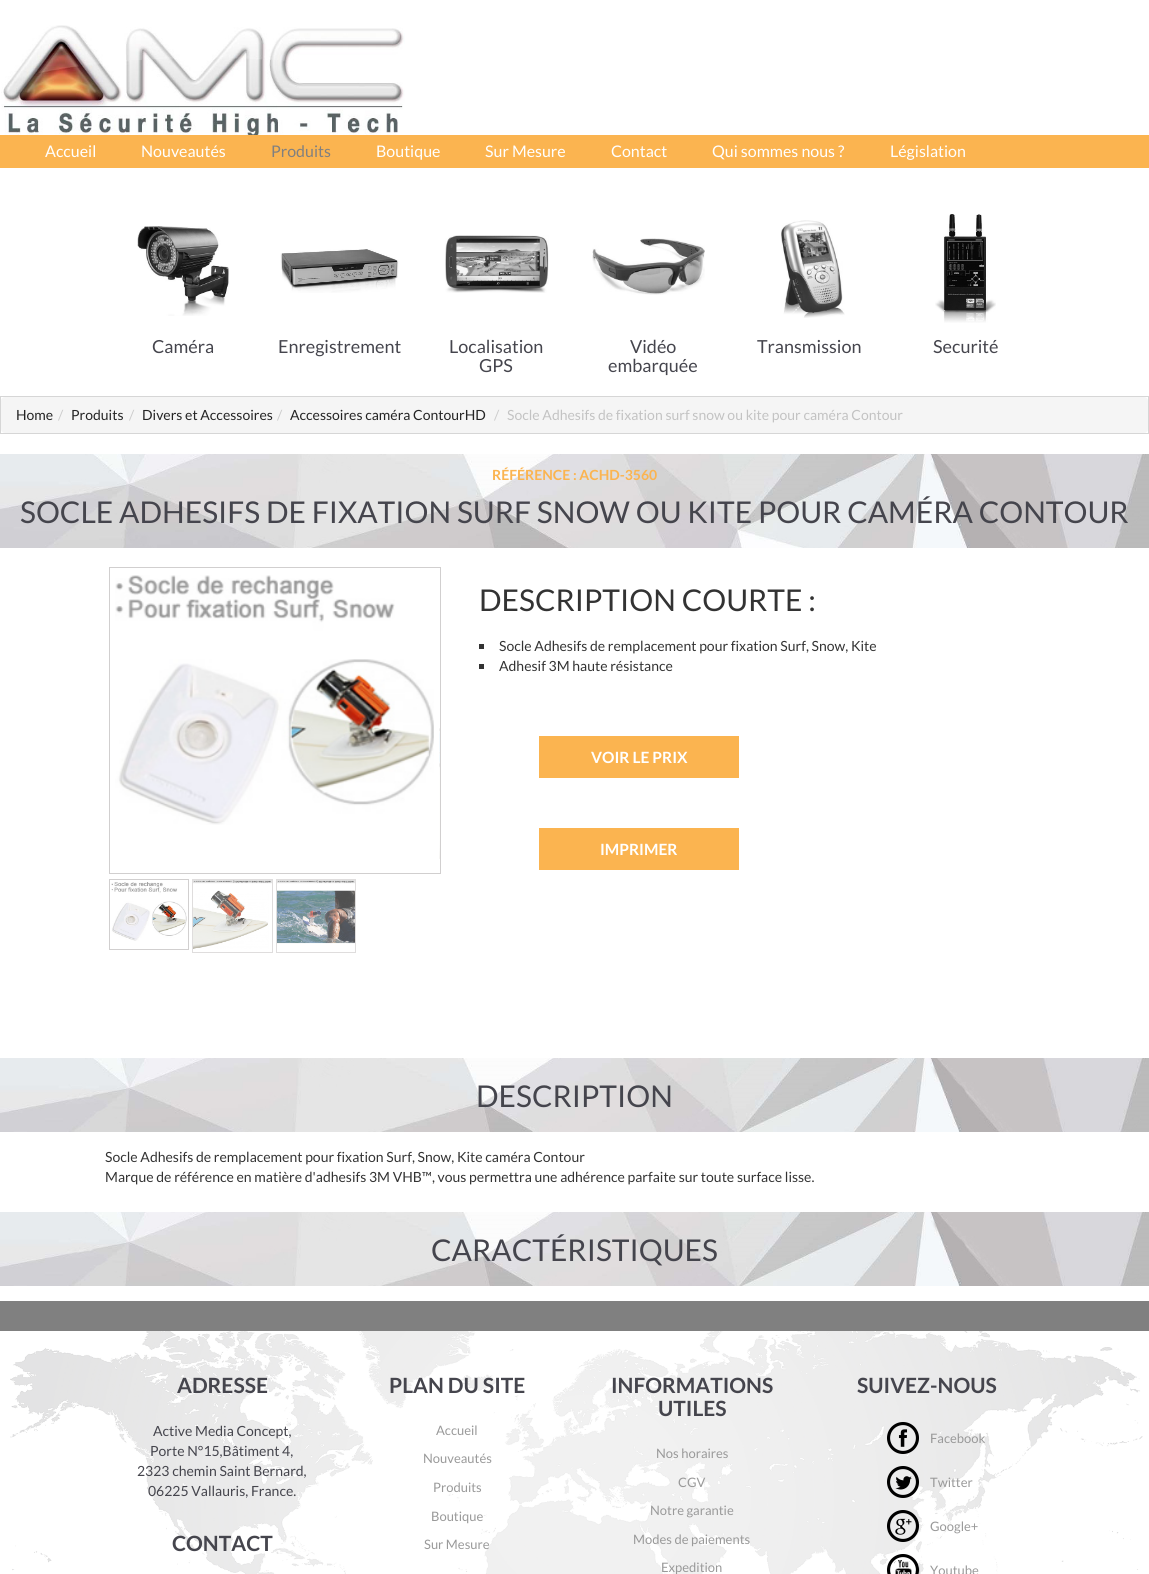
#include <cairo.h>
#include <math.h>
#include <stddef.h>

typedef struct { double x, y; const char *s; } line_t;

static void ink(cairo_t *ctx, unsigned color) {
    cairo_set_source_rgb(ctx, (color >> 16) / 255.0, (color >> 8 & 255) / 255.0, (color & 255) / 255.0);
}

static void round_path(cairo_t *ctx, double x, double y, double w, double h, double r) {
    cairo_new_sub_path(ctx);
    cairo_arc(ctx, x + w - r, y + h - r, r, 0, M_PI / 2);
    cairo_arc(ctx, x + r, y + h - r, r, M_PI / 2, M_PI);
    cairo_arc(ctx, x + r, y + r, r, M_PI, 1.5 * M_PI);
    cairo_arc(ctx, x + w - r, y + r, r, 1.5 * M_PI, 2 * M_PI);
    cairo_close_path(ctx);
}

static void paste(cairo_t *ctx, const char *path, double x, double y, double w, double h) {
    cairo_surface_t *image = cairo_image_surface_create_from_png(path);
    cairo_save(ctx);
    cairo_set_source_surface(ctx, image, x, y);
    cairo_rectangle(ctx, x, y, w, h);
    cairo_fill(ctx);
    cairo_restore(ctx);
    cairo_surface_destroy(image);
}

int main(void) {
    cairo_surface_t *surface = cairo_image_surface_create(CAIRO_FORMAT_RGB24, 1149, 1574);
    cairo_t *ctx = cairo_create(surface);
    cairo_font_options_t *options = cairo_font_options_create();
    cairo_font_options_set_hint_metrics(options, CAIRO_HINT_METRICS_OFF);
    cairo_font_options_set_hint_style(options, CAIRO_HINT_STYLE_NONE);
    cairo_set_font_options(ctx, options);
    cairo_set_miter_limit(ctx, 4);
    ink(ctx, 0xFFFFFF);
    cairo_paint(ctx);
    paste(ctx, "media/1.png", 1, 25, 404, 110);
    ink(ctx, 0xFBB450);
    cairo_rectangle(ctx, 0, 135, 1149, 33);
    cairo_fill(ctx);
    cairo_select_font_face(ctx, "Lato", CAIRO_FONT_SLANT_NORMAL, CAIRO_FONT_WEIGHT_NORMAL);
    cairo_set_font_size(ctx, 16);
    ink(ctx, 0xFFFFFF);
    cairo_move_to(ctx, 45, 157);
    cairo_show_text(ctx, "Accueil");
    cairo_move_to(ctx, 141, 157);
    cairo_show_text(ctx, "Nouveautés");
    ink(ctx, 0x808080);
    cairo_move_to(ctx, 271, 157);
    cairo_show_text(ctx, "Produits");
    ink(ctx, 0xFFFFFF);
    {
        static const line_t items[] = {
            {376, 157, "Boutique"},
            {485, 157, "Sur Mesure"},
            {611, 157, "Contact"},
            {712, 157, "Qui sommes nous ?"},
            {890, 157, "Législation"},
        };
        for (size_t i = 0; i < sizeof items / sizeof *items; i++) {
            cairo_move_to(ctx, items[i].x, items[i].y);
            cairo_show_text(ctx, items[i].s);
        }
    }
    paste(ctx, "media/2.png", 137, 226, 92, 90);
    cairo_set_font_size(ctx, 18);
    ink(ctx, 0x45454D);
    cairo_move_to(ctx, 152, 353);
    cairo_show_text(ctx, "Caméra");
    paste(ctx, "media/3.png", 280, 249, 119, 44);
    cairo_move_to(ctx, 278, 353);
    cairo_show_text(ctx, "Enregistrement");
    paste(ctx, "media/4.png", 445, 235, 104, 58);
    cairo_move_to(ctx, 449, 353);
    cairo_show_text(ctx, "Localisation");
    cairo_move_to(ctx, 479, 372);
    cairo_show_text(ctx, "GPS");
    paste(ctx, "media/5.png", 592, 238, 113, 57);
    cairo_move_to(ctx, 630, 353);
    cairo_show_text(ctx, "Vidéo");
    cairo_move_to(ctx, 608, 372);
    cairo_show_text(ctx, "embarquée");
    paste(ctx, "media/6.png", 781, 220, 64, 98);
    cairo_move_to(ctx, 757, 353);
    cairo_show_text(ctx, "Transmission");
    paste(ctx, "media/7.png", 935, 214, 61, 109);
    cairo_move_to(ctx, 933, 353);
    cairo_show_text(ctx, "Securité");
    cairo_rectangle(ctx, 0.5, 396.5, 1148, 37);
    ink(ctx, 0xD6D6D6);
    cairo_set_line_width(ctx, 1);
    cairo_stroke(ctx);
    ink(ctx, 0xF5F5F5);
    round_path(ctx, 1, 397, 1147, 36, 4);
    cairo_fill(ctx);
    cairo_set_font_size(ctx, 14);
    ink(ctx, 0x242424);
    cairo_move_to(ctx, 16, 420);
    cairo_show_text(ctx, "Home");
    ink(ctx, 0xCCCCCC);
    cairo_move_to(ctx, 58, 420);
    cairo_show_text(ctx, "/");
    ink(ctx, 0x242424);
    cairo_move_to(ctx, 71, 420);
    cairo_show_text(ctx, "Produits");
    ink(ctx, 0xCCCCCC);
    cairo_move_to(ctx, 129, 420);
    cairo_show_text(ctx, "/");
    ink(ctx, 0x242424);
    cairo_move_to(ctx, 142, 420);
    cairo_show_text(ctx, "Divers et Accessoires");
    ink(ctx, 0xCCCCCC);
    cairo_move_to(ctx, 277, 420);
    cairo_show_text(ctx, "/");
    ink(ctx, 0x242424);
    cairo_move_to(ctx, 290, 420);
    cairo_show_text(ctx, "Accessoires caméra ContourHD");
    ink(ctx, 0xCCCCCC);
    cairo_move_to(ctx, 494, 420);
    cairo_show_text(ctx, "/");
    ink(ctx, 0xC3C3C3);
    cairo_move_to(ctx, 507, 420);
    cairo_show_text(ctx, "Socle Adhesifs de fixation surf snow ou kite pour caméra Contour");
    paste(ctx, "media/8.png", 0, 454, 1149, 94);
    cairo_select_font_face(ctx, "Lato", CAIRO_FONT_SLANT_NORMAL, CAIRO_FONT_WEIGHT_BOLD);
    ink(ctx, 0xFBB450);
    cairo_move_to(ctx, 492, 480);
    cairo_show_text(ctx, "RÉFÉRENCE : ACHD-3560");
    cairo_select_font_face(ctx, "Lato", CAIRO_FONT_SLANT_NORMAL, CAIRO_FONT_WEIGHT_NORMAL);
    cairo_set_font_size(ctx, 30);
    ink(ctx, 0x45454D);
    cairo_move_to(ctx, 20, 523);
    cairo_show_text(ctx, "SOCLE ADHESIFS DE FIXATION SURF SNOW OU KITE POUR CAMÉRA CONTOUR");
    cairo_rectangle(ctx, 109.5, 567.5, 331, 306);
    ink(ctx, 0xD1CFCF);
    cairo_stroke(ctx);
    paste(ctx, "media/9.png", 115, 575, 319, 250);
    paste(ctx, "media/10.png", 439, 728, 1, 131);
    cairo_rectangle(ctx, 109.5, 879.5, 79, 70);
    cairo_stroke(ctx);
    paste(ctx, "media/11.png", 111, 882, 76, 59);
    cairo_rectangle(ctx, 192.5, 879.5, 80, 73);
    ink(ctx, 0xDFDDDD);
    cairo_stroke(ctx);
    paste(ctx, "media/12.png", 193, 880, 79, 69);
    cairo_rectangle(ctx, 276.5, 879.5, 79, 73);
    cairo_stroke(ctx);
    paste(ctx, "media/13.png", 277, 880, 78, 64);
    ink(ctx, 0x333333);
    cairo_move_to(ctx, 479, 611);
    cairo_show_text(ctx, "DESCRIPTION COURTE :");
    cairo_rectangle(ctx, 479, 644, 5, 5);
    cairo_fill(ctx);
    cairo_set_font_size(ctx, 14);
    cairo_move_to(ctx, 499, 651);
    cairo_show_text(ctx, "Socle Adhesifs de remplacement pour fixation Surf, Snow, Kite");
    cairo_rectangle(ctx, 479, 664, 5, 5);
    cairo_fill(ctx);
    cairo_move_to(ctx, 499, 671);
    cairo_show_text(ctx, "Adhesif 3M haute résistance");
    ink(ctx, 0xFBB450);
    cairo_rectangle(ctx, 539, 736, 200, 42);
    cairo_fill(ctx);
    cairo_select_font_face(ctx, "Lato", CAIRO_FONT_SLANT_NORMAL, CAIRO_FONT_WEIGHT_BOLD);
    cairo_set_font_size(ctx, 15.5);
    ink(ctx, 0xFFFFFF);
    cairo_move_to(ctx, 591, 763);
    cairo_show_text(ctx, "VOIR LE PRIX");
    ink(ctx, 0xFBB450);
    cairo_rectangle(ctx, 539, 828, 200, 42);
    cairo_fill(ctx);
    ink(ctx, 0xFFFFFF);
    cairo_move_to(ctx, 600, 855);
    cairo_show_text(ctx, "IMPRIMER");
    paste(ctx, "media/14.png", 0, 1058, 1149, 74);
    cairo_select_font_face(ctx, "Lato", CAIRO_FONT_SLANT_NORMAL, CAIRO_FONT_WEIGHT_NORMAL);
    cairo_set_font_size(ctx, 30);
    ink(ctx, 0x45454D);
    cairo_move_to(ctx, 476, 1107);
    cairo_show_text(ctx, "DESCRIPTION");
    cairo_set_font_size(ctx, 14);
    ink(ctx, 0x333333);
    cairo_move_to(ctx, 105, 1162);
    cairo_show_text(ctx, "Socle Adhesifs de remplacement pour fixation Surf, Snow, Kite caméra Contour");
    cairo_move_to(ctx, 105, 1182);
    cairo_show_text(ctx, "Marque de référence en matière d'adhesifs 3M VHB™, vous permettra une adhérence parfaite sur toute surface lisse.");
    paste(ctx, "media/14.png", 0, 1212, 1149, 74);
    cairo_set_font_size(ctx, 30);
    ink(ctx, 0x45454D);
    cairo_move_to(ctx, 431, 1261);
    cairo_show_text(ctx, "CARACTÉRISTIQUES");
    paste(ctx, "media/15.png", 10, 1331, 1133, 243);
    ink(ctx, 0x808080);
    cairo_rectangle(ctx, 0, 1301, 1149, 30);
    cairo_fill(ctx);
    cairo_select_font_face(ctx, "Lato", CAIRO_FONT_SLANT_NORMAL, CAIRO_FONT_WEIGHT_BOLD);
    cairo_set_font_size(ctx, 21);
    ink(ctx, 0x45454D);
    cairo_move_to(ctx, 177, 1393);
    cairo_show_text(ctx, "ADRESSE");
    cairo_select_font_face(ctx, "Lato", CAIRO_FONT_SLANT_NORMAL, CAIRO_FONT_WEIGHT_NORMAL);
    cairo_set_font_size(ctx, 14);
    {
        static const line_t items[] = {
            {153, 1436, "Active Media Concept,"},
            {150, 1456, "Porte N°15,Bâtiment 4,"},
            {137, 1476, "2323 chemin Saint Bernard,"},
            {148, 1496, "06225 Vallauris, France."},
        };
        for (size_t i = 0; i < sizeof items / sizeof *items; i++) {
            cairo_move_to(ctx, items[i].x, items[i].y);
            cairo_show_text(ctx, items[i].s);
        }
    }
    cairo_select_font_face(ctx, "Lato", CAIRO_FONT_SLANT_NORMAL, CAIRO_FONT_WEIGHT_BOLD);
    cairo_set_font_size(ctx, 21);
    cairo_move_to(ctx, 172, 1551);
    cairo_show_text(ctx, "CONTACT");
    cairo_move_to(ctx, 389, 1393);
    cairo_show_text(ctx, "PLAN DU SITE");
    cairo_select_font_face(ctx, "Lato", CAIRO_FONT_SLANT_NORMAL, CAIRO_FONT_WEIGHT_NORMAL);
    cairo_set_font_size(ctx, 13);
    ink(ctx, 0x999999);
    {
        static const line_t items[] = {
            {436, 1435, "Accueil"},
            {423, 1463, "Nouveautés"},
            {433, 1492, "Produits"},
            {431, 1521, "Boutique"},
            {424, 1549, "Sur Mesure"},
        };
        for (size_t i = 0; i < sizeof items / sizeof *items; i++) {
            cairo_move_to(ctx, items[i].x, items[i].y);
            cairo_show_text(ctx, items[i].s);
        }
    }
    cairo_select_font_face(ctx, "Lato", CAIRO_FONT_SLANT_NORMAL, CAIRO_FONT_WEIGHT_BOLD);
    cairo_set_font_size(ctx, 21);
    ink(ctx, 0x45454D);
    cairo_move_to(ctx, 611, 1393);
    cairo_show_text(ctx, "INFORMATIONS");
    cairo_move_to(ctx, 658, 1416);
    cairo_show_text(ctx, "UTILES");
    cairo_select_font_face(ctx, "Lato", CAIRO_FONT_SLANT_NORMAL, CAIRO_FONT_WEIGHT_NORMAL);
    cairo_set_font_size(ctx, 13);
    ink(ctx, 0x999999);
    {
        static const line_t items[] = {
            {656, 1458, "Nos horaires"},
            {678, 1487, "CGV"},
            {650, 1515, "Notre garantie"},
            {633, 1544, "Modes de paiements"},
            {661, 1572, "Expedition"},
        };
        for (size_t i = 0; i < sizeof items / sizeof *items; i++) {
            cairo_move_to(ctx, items[i].x, items[i].y);
            cairo_show_text(ctx, items[i].s);
        }
    }
    cairo_select_font_face(ctx, "Lato", CAIRO_FONT_SLANT_NORMAL, CAIRO_FONT_WEIGHT_BOLD);
    cairo_set_font_size(ctx, 21);
    ink(ctx, 0x45454D);
    cairo_move_to(ctx, 857, 1393);
    cairo_show_text(ctx, "SUIVEZ-NOUS");
    paste(ctx, "media/16.png", 887, 1422, 32, 32);
    cairo_select_font_face(ctx, "Lato", CAIRO_FONT_SLANT_NORMAL, CAIRO_FONT_WEIGHT_NORMAL);
    cairo_set_font_size(ctx, 13);
    ink(ctx, 0x999999);
    cairo_move_to(ctx, 930, 1443);
    cairo_show_text(ctx, "Facebook");
    paste(ctx, "media/17.png", 887, 1466, 32, 32);
    cairo_move_to(ctx, 930, 1487);
    cairo_show_text(ctx, "Twitter");
    paste(ctx, "media/18.png", 887, 1510, 32, 32);
    cairo_move_to(ctx, 930, 1531);
    cairo_show_text(ctx, "Google+");
    paste(ctx, "media/19.png", 887, 1554, 33, 20);
    cairo_move_to(ctx, 930, 1575);
    cairo_show_text(ctx, "Youtube");
    cairo_surface_write_to_png(surface, "image.png");
    cairo_font_options_destroy(options);
    cairo_destroy(ctx);
    cairo_surface_destroy(surface);
    return 0;
}
